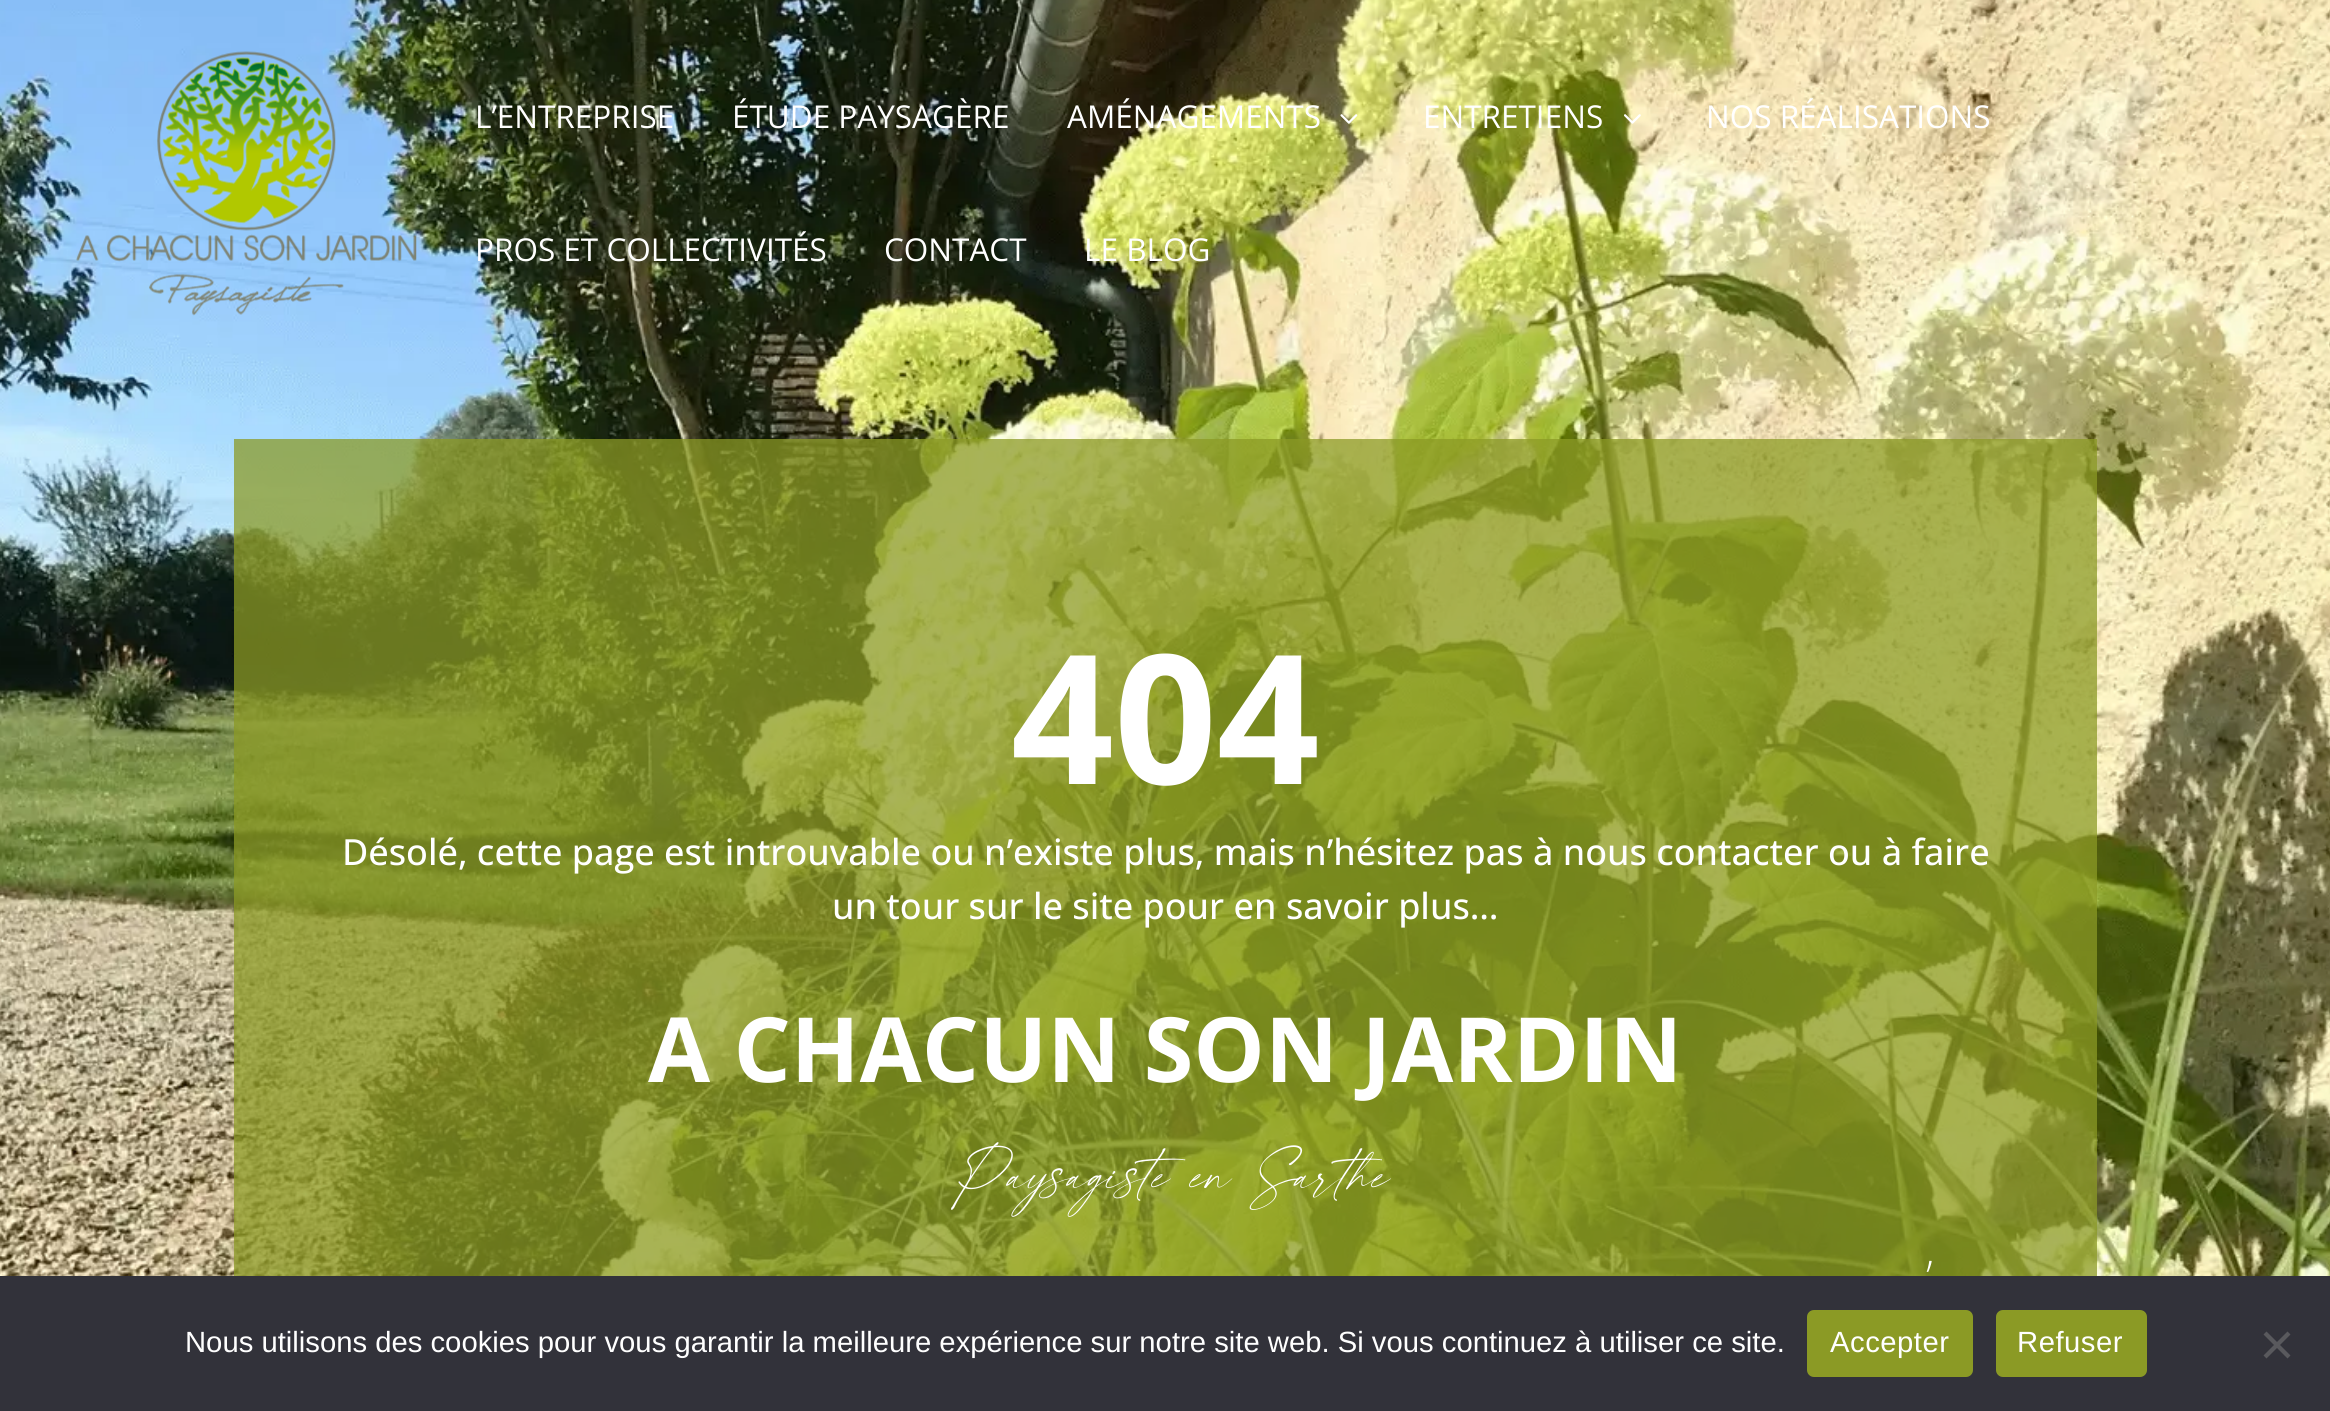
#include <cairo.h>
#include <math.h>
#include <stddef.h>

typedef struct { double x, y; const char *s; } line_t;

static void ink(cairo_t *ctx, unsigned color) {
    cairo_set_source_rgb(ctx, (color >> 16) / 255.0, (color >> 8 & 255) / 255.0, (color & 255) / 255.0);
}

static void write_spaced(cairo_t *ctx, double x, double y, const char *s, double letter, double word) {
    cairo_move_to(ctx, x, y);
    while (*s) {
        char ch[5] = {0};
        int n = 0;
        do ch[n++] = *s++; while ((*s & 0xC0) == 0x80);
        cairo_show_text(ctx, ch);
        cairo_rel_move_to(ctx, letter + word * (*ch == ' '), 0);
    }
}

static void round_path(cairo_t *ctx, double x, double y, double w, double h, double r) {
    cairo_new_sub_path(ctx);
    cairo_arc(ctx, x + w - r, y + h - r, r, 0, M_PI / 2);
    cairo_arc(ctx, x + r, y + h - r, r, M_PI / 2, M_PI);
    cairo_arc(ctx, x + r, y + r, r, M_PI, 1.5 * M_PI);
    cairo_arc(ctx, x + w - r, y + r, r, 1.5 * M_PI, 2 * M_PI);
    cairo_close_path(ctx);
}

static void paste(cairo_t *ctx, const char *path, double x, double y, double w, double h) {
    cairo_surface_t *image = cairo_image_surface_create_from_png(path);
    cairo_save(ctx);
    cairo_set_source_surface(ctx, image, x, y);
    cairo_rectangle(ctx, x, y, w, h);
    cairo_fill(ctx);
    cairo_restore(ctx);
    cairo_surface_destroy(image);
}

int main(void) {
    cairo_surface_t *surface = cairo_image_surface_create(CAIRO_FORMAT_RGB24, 2330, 1411);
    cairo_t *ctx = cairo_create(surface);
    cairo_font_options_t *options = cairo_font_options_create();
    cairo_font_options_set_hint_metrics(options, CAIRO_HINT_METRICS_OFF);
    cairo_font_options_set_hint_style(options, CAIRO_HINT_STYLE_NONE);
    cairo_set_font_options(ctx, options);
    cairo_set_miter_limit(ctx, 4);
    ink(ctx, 0xFFFFFF);
    cairo_paint(ctx);
    paste(ctx, "media/4.png", 0, 0, 2330, 1276);
    paste(ctx, "media/1.png", 76, 51, 341, 265);
    cairo_select_font_face(ctx, "Open Sans", CAIRO_FONT_SLANT_NORMAL, CAIRO_FONT_WEIGHT_NORMAL);
    cairo_set_font_size(ctx, 31.5);
    ink(ctx, 0xFFFFFF);
    {
        static const line_t items[] = {
            {475, 128, "L’ENTREPRISE"},
            {732, 128, "ÉTUDE PAYSAGÈRE"},
            {1067, 128, "AMÉNAGEMENTS"},
        };
        for (size_t i = 0; i < sizeof items / sizeof *items; i++) {
            cairo_move_to(ctx, items[i].x, items[i].y);
            cairo_show_text(ctx, items[i].s);
        }
    }
    paste(ctx, "media/2.png", 1340, 114, 18, 10);
    cairo_move_to(ctx, 1423, 128);
    cairo_show_text(ctx, "ENTRETIENS");
    paste(ctx, "media/3.png", 1624, 114, 17, 10);
    {
        static const line_t items[] = {
            {1706, 128, "NOS RÉALISATIONS"},
            {475, 261, "PROS ET COLLECTIVITÉS"},
            {884, 261, "CONTACT"},
            {1084, 261, "LE BLOG"},
        };
        for (size_t i = 0; i < sizeof items / sizeof *items; i++) {
            cairo_move_to(ctx, items[i].x, items[i].y);
            cairo_show_text(ctx, items[i].s);
        }
    }
    cairo_set_source_rgba(ctx, 0.545, 0.604, 0.145, 0.74);
    cairo_rectangle(ctx, 234, 439, 1863, 837);
    cairo_fill(ctx);
    cairo_select_font_face(ctx, "Open Sans", CAIRO_FONT_SLANT_NORMAL, CAIRO_FONT_WEIGHT_BOLD);
    cairo_set_font_size(ctx, 180);
    ink(ctx, 0xFFFFFF);
    cairo_move_to(ctx, 1011, 784);
    cairo_show_text(ctx, "404");
    cairo_select_font_face(ctx, "Open Sans Medium", CAIRO_FONT_SLANT_NORMAL, CAIRO_FONT_WEIGHT_NORMAL);
    cairo_set_font_size(ctx, 36);
    cairo_move_to(ctx, 342, 865);
    cairo_show_text(ctx, "Désolé, cette page est introuvable ou n’existe plus, mais n’hésitez pas à nous contacter ou à faire");
    cairo_move_to(ctx, 832, 919);
    cairo_show_text(ctx, "un tour sur le site pour en savoir plus…");
    cairo_select_font_face(ctx, "Open Sans", CAIRO_FONT_SLANT_NORMAL, CAIRO_FONT_WEIGHT_BOLD);
    cairo_set_font_size(ctx, 90);
    cairo_move_to(ctx, 648, 1082);
    cairo_show_text(ctx, "A CHACUN SON JARDIN");
    cairo_select_font_face(ctx, "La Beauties", CAIRO_FONT_SLANT_ITALIC, CAIRO_FONT_WEIGHT_NORMAL);
    cairo_move_to(ctx, 948, 1210);
    cairo_show_text(ctx, "Paysagiste en Sarthe");
    cairo_select_font_face(ctx, "Open Sans Light", CAIRO_FONT_SLANT_NORMAL, CAIRO_FONT_WEIGHT_NORMAL);
    cairo_set_font_size(ctx, 45);
    cairo_move_to(ctx, 1926, 1293);
    cairo_show_text(ctx, "’");
    ink(ctx, 0x32323A);
    cairo_rectangle(ctx, 0, 1276, 2330, 135);
    cairo_fill(ctx);
    cairo_select_font_face(ctx, "Liberation Sans", CAIRO_FONT_SLANT_NORMAL, CAIRO_FONT_WEIGHT_NORMAL);
    cairo_set_font_size(ctx, 29.25);
    ink(ctx, 0xFFFFFF);
    cairo_move_to(ctx, 185, 1352);
    cairo_show_text(ctx, "Nous utilisons des cookies pour vous garantir la meilleure expérience sur notre site web. Si vous continuez à utiliser ce site.");
    ink(ctx, 0x8B9A25);
    round_path(ctx, 1807, 1310, 166, 67, 7);
    cairo_fill(ctx);
    ink(ctx, 0xFFFFFF);
    write_spaced(ctx, 1830, 1352, "Accepter", 0.5, 0);
    ink(ctx, 0x8B9A25);
    round_path(ctx, 1996, 1310, 151, 67, 7);
    cairo_fill(ctx);
    ink(ctx, 0xFFFFFF);
    write_spaced(ctx, 2017, 1352, "Refuser", 0.5, 0);
    ink(ctx, 0x59595D);
    cairo_new_path(ctx);
    cairo_move_to(ctx, 2287.5, 1331.5);
    cairo_line_to(ctx, 2290.5, 1334.5);
    cairo_line_to(ctx, 2266.5, 1358.5);
    cairo_line_to(ctx, 2263.5, 1355.5);
    cairo_close_path(ctx);
    cairo_fill(ctx);
    cairo_new_path(ctx);
    cairo_move_to(ctx, 2263.5, 1334.5);
    cairo_line_to(ctx, 2266.5, 1331.5);
    cairo_line_to(ctx, 2290.5, 1355.5);
    cairo_line_to(ctx, 2287.5, 1358.5);
    cairo_close_path(ctx);
    cairo_fill(ctx);
    cairo_surface_write_to_png(surface, "image.png");
    cairo_font_options_destroy(options);
    cairo_destroy(ctx);
    cairo_surface_destroy(surface);
    return 0;
}
